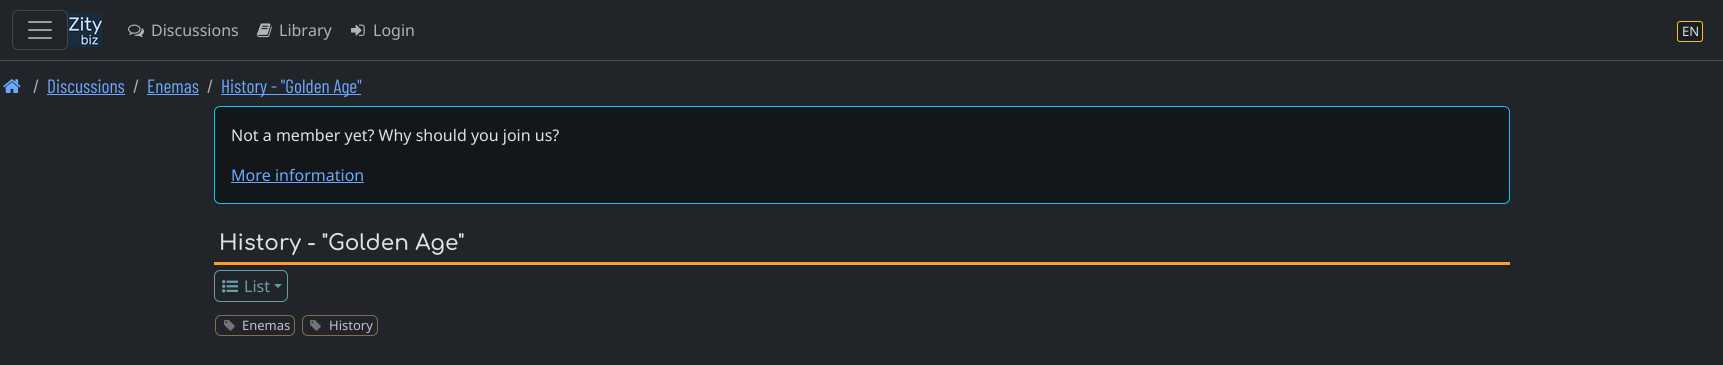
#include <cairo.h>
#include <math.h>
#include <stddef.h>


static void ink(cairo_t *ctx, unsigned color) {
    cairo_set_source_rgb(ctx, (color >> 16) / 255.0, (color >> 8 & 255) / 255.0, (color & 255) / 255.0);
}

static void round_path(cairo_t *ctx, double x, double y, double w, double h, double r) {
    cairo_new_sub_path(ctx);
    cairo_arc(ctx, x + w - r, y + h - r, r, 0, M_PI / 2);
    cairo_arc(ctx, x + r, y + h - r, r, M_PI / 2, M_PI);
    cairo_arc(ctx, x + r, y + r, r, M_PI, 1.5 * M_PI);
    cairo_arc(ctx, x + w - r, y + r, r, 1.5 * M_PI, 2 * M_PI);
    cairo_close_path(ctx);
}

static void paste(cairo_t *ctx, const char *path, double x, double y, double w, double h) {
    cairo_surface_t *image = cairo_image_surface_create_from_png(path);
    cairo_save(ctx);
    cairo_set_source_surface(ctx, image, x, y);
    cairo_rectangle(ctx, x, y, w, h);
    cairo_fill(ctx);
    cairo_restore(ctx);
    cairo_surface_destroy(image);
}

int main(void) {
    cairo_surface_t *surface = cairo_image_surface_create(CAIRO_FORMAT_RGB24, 1723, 365);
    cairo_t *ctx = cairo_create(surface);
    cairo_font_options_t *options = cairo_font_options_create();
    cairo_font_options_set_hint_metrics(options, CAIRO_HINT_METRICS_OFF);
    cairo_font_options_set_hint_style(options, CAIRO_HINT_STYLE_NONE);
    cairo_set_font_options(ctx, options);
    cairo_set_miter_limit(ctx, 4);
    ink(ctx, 0x212529);
    cairo_paint(ctx);
    ink(ctx, 0x495057);
    cairo_rectangle(ctx, 0, 60, 1723, 1);
    cairo_fill(ctx);
    round_path(ctx, 12.5, 10.5, 55, 39, 5.5);
    ink(ctx, 0x424649);
    cairo_set_line_width(ctx, 1);
    cairo_stroke(ctx);
    paste(ctx, "media/1.png", 28, 21, 24, 18);
    paste(ctx, "media/2.png", 68, 13, 34, 34);
    paste(ctx, "media/3.png", 128, 24, 16, 14);
    cairo_select_font_face(ctx, "Noto Sans", CAIRO_FONT_SLANT_NORMAL, CAIRO_FONT_WEIGHT_NORMAL);
    cairo_set_font_size(ctx, 16);
    ink(ctx, 0xAFB3B7);
    cairo_move_to(ctx, 151, 36);
    cairo_show_text(ctx, "Discussions");
    paste(ctx, "media/4.png", 257, 23, 15, 15);
    cairo_move_to(ctx, 279, 36);
    cairo_show_text(ctx, "Library");
    paste(ctx, "media/5.png", 351, 24, 14, 12);
    cairo_move_to(ctx, 373, 36);
    cairo_show_text(ctx, "Login");
    ink(ctx, 0x1A1D21);
    round_path(ctx, 1677.5, 21.5, 25, 20, 2.5);
    cairo_fill_preserve(ctx);
    ink(ctx, 0xFFC107);
    cairo_stroke(ctx);
    cairo_set_font_size(ctx, 13);
    ink(ctx, 0xDEE2E6);
    cairo_move_to(ctx, 1682, 36);
    cairo_show_text(ctx, "EN");
    paste(ctx, "media/6.png", 3, 79, 18, 14);
    cairo_select_font_face(ctx, "Barlow Condensed", CAIRO_FONT_SLANT_NORMAL, CAIRO_FONT_WEIGHT_NORMAL);
    cairo_set_font_size(ctx, 19.25);
    ink(ctx, 0xAFB3B7);
    cairo_move_to(ctx, 33, 93);
    cairo_show_text(ctx, "/");
    ink(ctx, 0x6EA8FE);
    cairo_move_to(ctx, 47, 93);
    cairo_show_text(ctx, "Discussions");
    cairo_rectangle(ctx, 47, 94, 78, 1);
    cairo_fill(ctx);
    ink(ctx, 0xAFB3B7);
    cairo_move_to(ctx, 133, 93);
    cairo_show_text(ctx, "/");
    ink(ctx, 0x6EA8FE);
    cairo_move_to(ctx, 147, 93);
    cairo_show_text(ctx, "Enemas");
    cairo_rectangle(ctx, 147, 94, 52, 1);
    cairo_fill(ctx);
    ink(ctx, 0xAFB3B7);
    cairo_move_to(ctx, 207, 93);
    cairo_show_text(ctx, "/");
    ink(ctx, 0x6EA8FE);
    cairo_rectangle(ctx, 221, 94, 140, 1);
    cairo_fill(ctx);
    cairo_move_to(ctx, 221, 93);
    cairo_show_text(ctx, "History - \"Golden Age\"");
    ink(ctx, 0x141719);
    round_path(ctx, 214.5, 106.5, 1295, 97, 5.5);
    cairo_fill_preserve(ctx);
    ink(ctx, 0x0DCAF0);
    cairo_stroke(ctx);
    cairo_select_font_face(ctx, "Noto Sans", CAIRO_FONT_SLANT_NORMAL, CAIRO_FONT_WEIGHT_NORMAL);
    cairo_set_font_size(ctx, 16);
    ink(ctx, 0xDEE2E6);
    cairo_move_to(ctx, 231, 141);
    cairo_show_text(ctx, "Not a member yet? Why should you join us?");
    ink(ctx, 0x6EA8FE);
    cairo_move_to(ctx, 231, 181);
    cairo_show_text(ctx, "More information");
    cairo_rectangle(ctx, 231, 182, 133, 1);
    cairo_fill(ctx);
    ink(ctx, 0xFF9E2D);
    cairo_rectangle(ctx, 214, 262, 1296, 3);
    cairo_fill(ctx);
    cairo_select_font_face(ctx, "Comfortaa SemiBold", CAIRO_FONT_SLANT_NORMAL, CAIRO_FONT_WEIGHT_NORMAL);
    cairo_set_font_size(ctx, 21.6);
    ink(ctx, 0xDEE2E6);
    cairo_move_to(ctx, 219, 250);
    cairo_show_text(ctx, "History - \"Golden Age\"");
    round_path(ctx, 214.5, 270.5, 73, 31, 5.5);
    ink(ctx, 0x669EA9);
    cairo_stroke(ctx);
    paste(ctx, "media/7.png", 222, 280, 16, 13);
    cairo_select_font_face(ctx, "Noto Sans", CAIRO_FONT_SLANT_NORMAL, CAIRO_FONT_WEIGHT_NORMAL);
    cairo_set_font_size(ctx, 16);
    cairo_move_to(ctx, 244, 292);
    cairo_show_text(ctx, "List");
    cairo_new_path(ctx);
    cairo_move_to(ctx, 274, 284);
    cairo_line_to(ctx, 282, 284);
    cairo_line_to(ctx, 278, 288);
    cairo_close_path(ctx);
    cairo_fill(ctx);
    round_path(ctx, 215.5, 315.5, 79, 20, 5.5);
    ink(ctx, 0x866D50);
    cairo_stroke(ctx);
    paste(ctx, "media/8.png", 224, 319, 11, 12);
    cairo_set_font_size(ctx, 13);
    ink(ctx, 0xC1C1CE);
    cairo_move_to(ctx, 242, 330);
    cairo_show_text(ctx, "Enemas");
    round_path(ctx, 302.5, 315.5, 75, 20, 5.5);
    ink(ctx, 0x866D50);
    cairo_stroke(ctx);
    paste(ctx, "media/8.png", 310, 319, 11, 12);
    ink(ctx, 0xC1C1CE);
    cairo_move_to(ctx, 329, 330);
    cairo_show_text(ctx, "History");
    cairo_surface_write_to_png(surface, "image.png");
    cairo_font_options_destroy(options);
    cairo_destroy(ctx);
    cairo_surface_destroy(surface);
    return 0;
}
